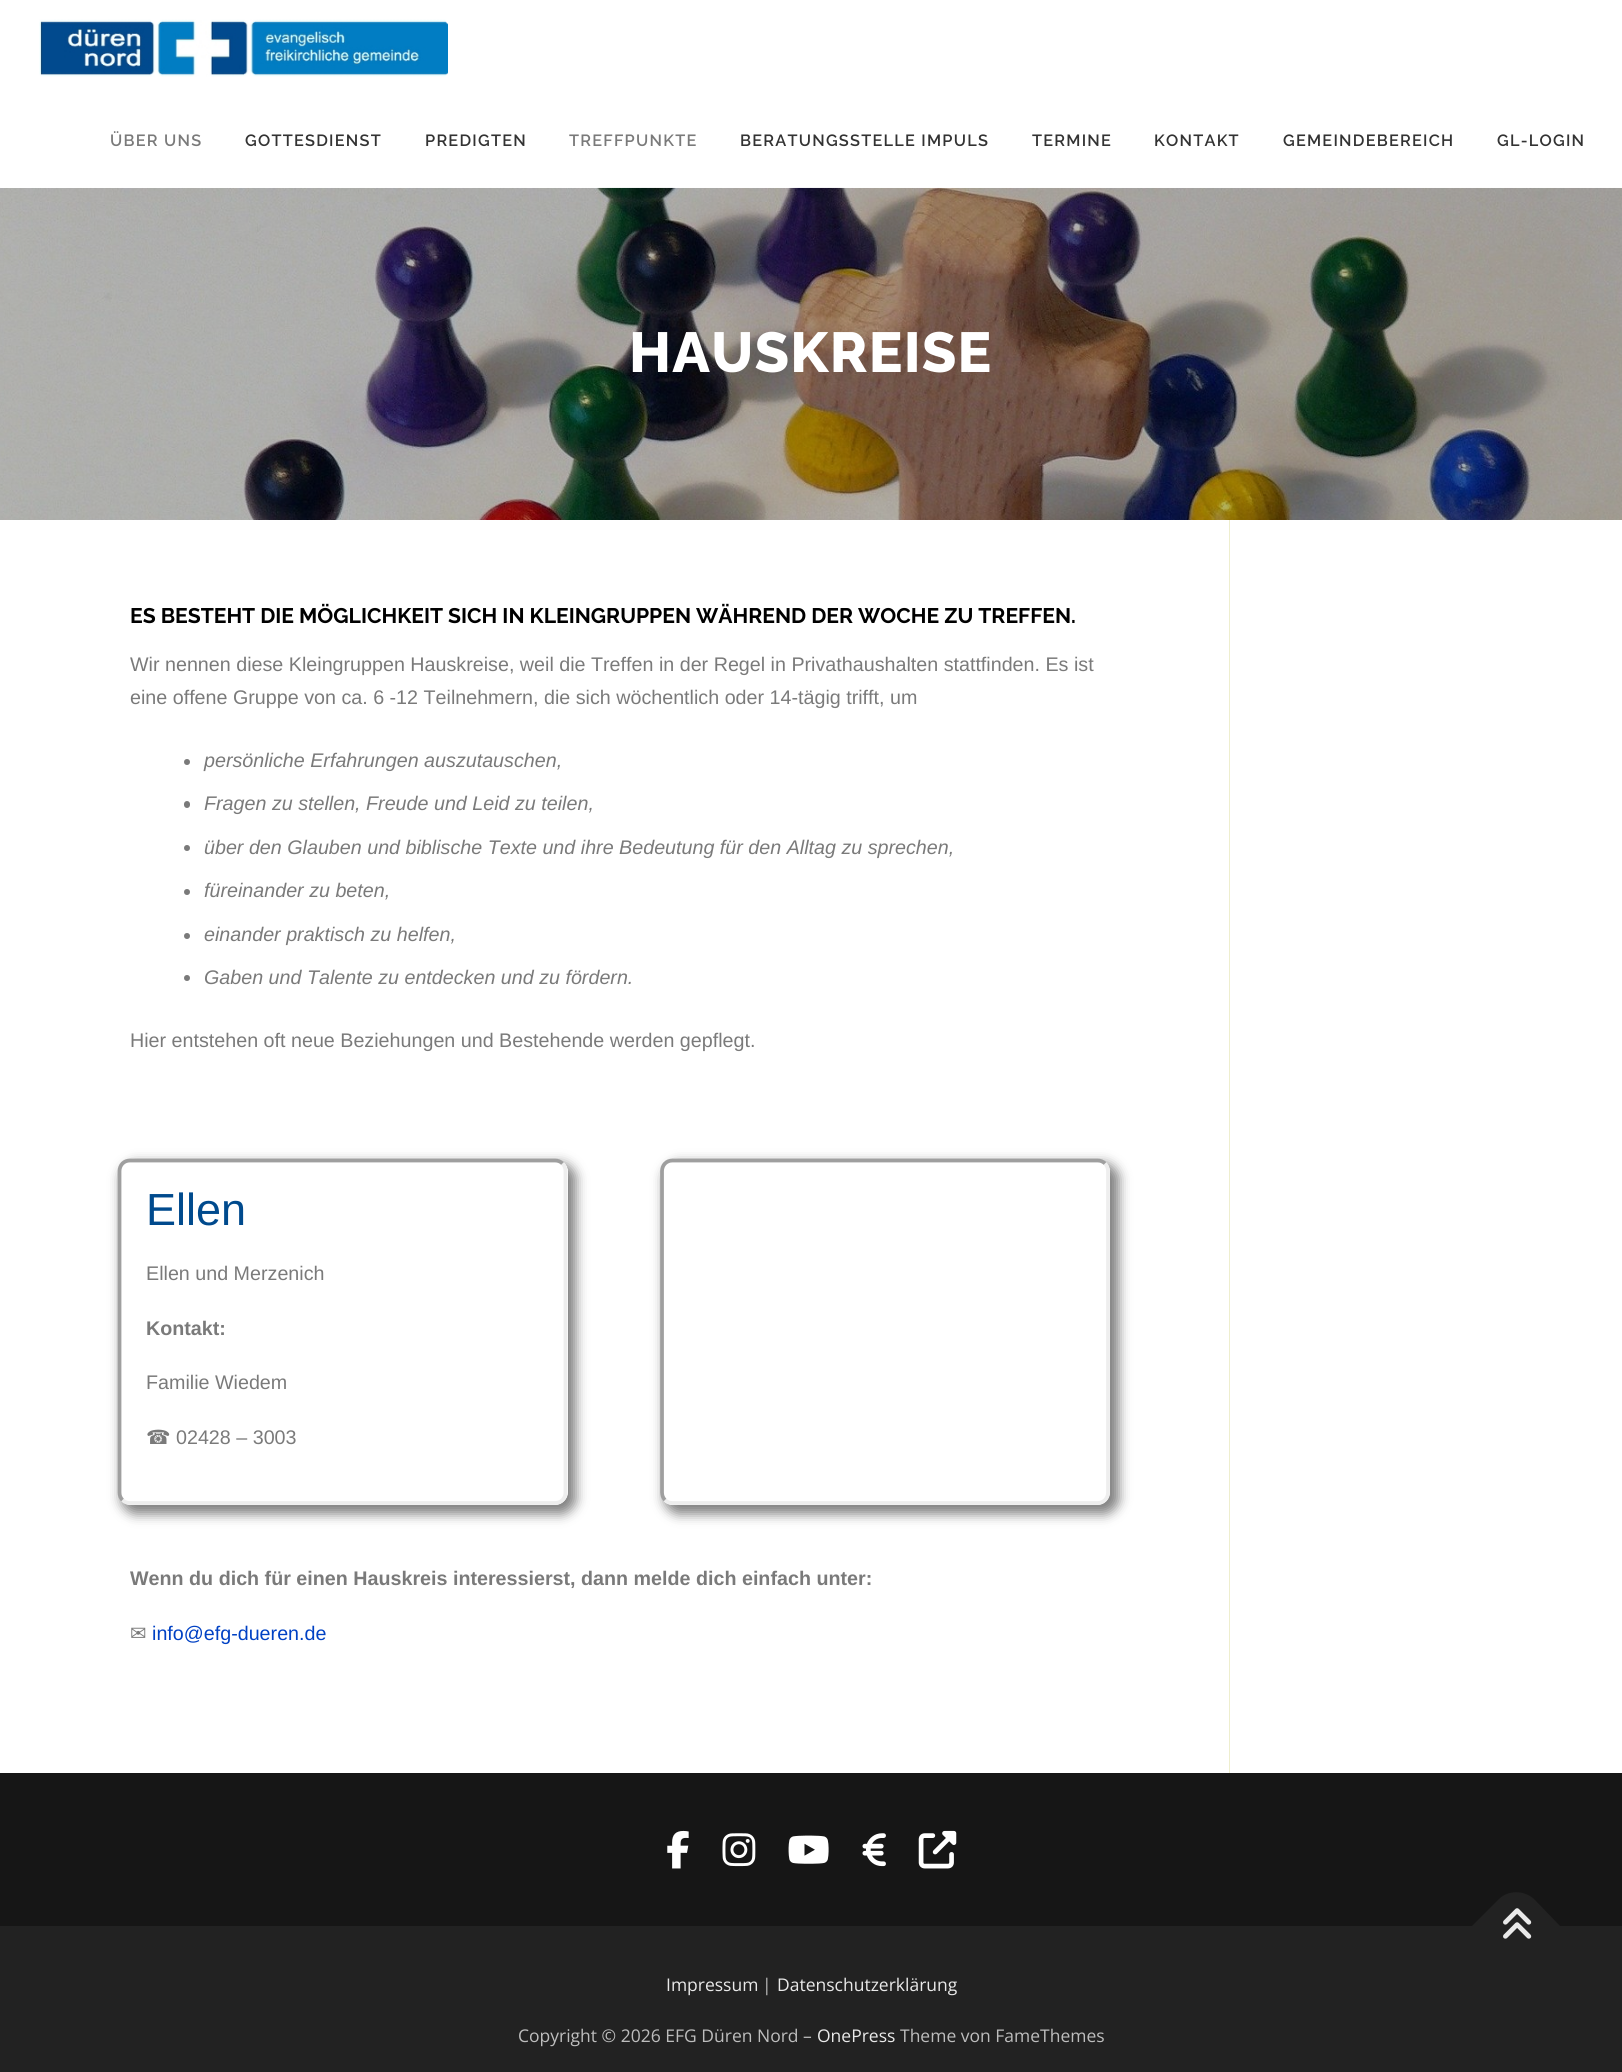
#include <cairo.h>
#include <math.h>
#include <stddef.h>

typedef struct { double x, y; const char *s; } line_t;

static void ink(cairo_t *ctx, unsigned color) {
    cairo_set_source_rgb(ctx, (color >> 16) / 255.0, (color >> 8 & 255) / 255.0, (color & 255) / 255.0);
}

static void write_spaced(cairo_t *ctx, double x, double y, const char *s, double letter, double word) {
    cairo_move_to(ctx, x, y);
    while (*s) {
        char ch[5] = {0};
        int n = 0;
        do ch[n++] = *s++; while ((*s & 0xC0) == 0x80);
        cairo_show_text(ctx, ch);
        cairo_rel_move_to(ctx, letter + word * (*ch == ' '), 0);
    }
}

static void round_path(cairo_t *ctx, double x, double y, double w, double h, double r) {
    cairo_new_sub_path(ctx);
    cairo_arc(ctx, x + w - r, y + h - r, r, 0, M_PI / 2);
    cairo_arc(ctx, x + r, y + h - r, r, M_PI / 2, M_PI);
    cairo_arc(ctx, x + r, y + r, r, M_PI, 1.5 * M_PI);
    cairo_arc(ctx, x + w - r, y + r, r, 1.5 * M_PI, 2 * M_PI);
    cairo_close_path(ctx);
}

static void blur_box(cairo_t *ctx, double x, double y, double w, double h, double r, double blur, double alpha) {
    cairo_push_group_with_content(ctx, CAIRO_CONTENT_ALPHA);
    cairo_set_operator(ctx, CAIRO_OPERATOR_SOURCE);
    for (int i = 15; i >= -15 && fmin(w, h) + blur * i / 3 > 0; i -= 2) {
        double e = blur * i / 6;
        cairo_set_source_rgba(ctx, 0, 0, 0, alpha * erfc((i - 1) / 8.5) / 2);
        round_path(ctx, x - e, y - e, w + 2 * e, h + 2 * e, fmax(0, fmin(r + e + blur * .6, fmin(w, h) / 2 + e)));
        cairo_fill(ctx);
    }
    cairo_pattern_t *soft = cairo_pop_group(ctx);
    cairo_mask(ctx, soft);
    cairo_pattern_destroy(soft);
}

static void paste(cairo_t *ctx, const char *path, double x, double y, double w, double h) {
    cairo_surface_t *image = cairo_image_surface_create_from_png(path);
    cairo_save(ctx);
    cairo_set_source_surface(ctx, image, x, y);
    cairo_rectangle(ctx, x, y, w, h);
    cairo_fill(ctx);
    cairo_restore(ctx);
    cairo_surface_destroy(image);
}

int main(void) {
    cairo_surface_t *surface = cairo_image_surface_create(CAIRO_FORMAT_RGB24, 1622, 2072);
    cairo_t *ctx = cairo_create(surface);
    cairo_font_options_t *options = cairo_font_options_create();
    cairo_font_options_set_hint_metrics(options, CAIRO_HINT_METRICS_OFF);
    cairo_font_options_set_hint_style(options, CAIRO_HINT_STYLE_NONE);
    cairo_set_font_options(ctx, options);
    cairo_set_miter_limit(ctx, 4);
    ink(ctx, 0xFFFFFF);
    cairo_paint(ctx);
    paste(ctx, "media/2.png", 0, 187, 1622, 333);
    cairo_set_source_rgba(ctx, 1, 1, 1, 0.9);
    cairo_rectangle(ctx, 1, 187, 1621, 1);
    cairo_fill(ctx);
    paste(ctx, "media/1.png", 39, 19, 409, 58);
    cairo_select_font_face(ctx, "Raleway SemiBold", CAIRO_FONT_SLANT_NORMAL, CAIRO_FONT_WEIGHT_NORMAL);
    cairo_set_font_size(ctx, 16.25);
    ink(ctx, 0x7A7A7A);
    write_spaced(ctx, 110, 146, "ÜBER UNS", 1.25, 0);
    ink(ctx, 0x333333);
    write_spaced(ctx, 245, 146, "GOTTESDIENST", 1.25, 0);
    write_spaced(ctx, 425, 146, "PREDIGTEN", 1.25, 0);
    ink(ctx, 0x7A7A7A);
    write_spaced(ctx, 569, 146, "TREFFPUNKTE", 1.25, 0);
    ink(ctx, 0x333333);
    {
        static const line_t items[] = {
            {740, 146, "BERATUNGSSTELLE IMPULS"},
            {1032, 146, "TERMINE"},
            {1154, 146, "KONTAKT"},
            {1283, 146, "GEMEINDEBEREICH"},
            {1497, 146, "GL-LOGIN"},
        };
        for (size_t i = 0; i < sizeof items / sizeof *items; i++) {
            write_spaced(ctx, items[i].x, items[i].y, items[i].s, 1.25, 0);
        }
    }
    cairo_select_font_face(ctx, "Raleway ExtraBold", CAIRO_FONT_SLANT_NORMAL, CAIRO_FONT_WEIGHT_NORMAL);
    cairo_set_font_size(ctx, 56.25);
    ink(ctx, 0xFFFFFF);
    write_spaced(ctx, 629, 372, "HAUSKREISE", 1.25, 0);
    ink(ctx, 0xEEEECE);
    cairo_rectangle(ctx, 1229, 520, 1, 1253);
    cairo_fill(ctx);
    cairo_select_font_face(ctx, "Raleway", CAIRO_FONT_SLANT_NORMAL, CAIRO_FONT_WEIGHT_BOLD);
    cairo_set_font_size(ctx, 21.1);
    ink(ctx, 0x000000);
    cairo_move_to(ctx, 130, 623);
    cairo_show_text(ctx, "ES BESTEHT DIE MÖGLICHKEIT SICH IN KLEINGRUPPEN WÄHREND DER WOCHE ZU TREFFEN.");
    cairo_select_font_face(ctx, "Liberation Sans", CAIRO_FONT_SLANT_NORMAL, CAIRO_FONT_WEIGHT_NORMAL);
    cairo_set_font_size(ctx, 19.7);
    ink(ctx, 0x7A7A7A);
    cairo_move_to(ctx, 130, 671);
    cairo_show_text(ctx, "Wir nennen diese Kleingruppen Hauskreise, weil die Treffen in der Regel in Privathaushalten stattfinden. Es ist");
    cairo_move_to(ctx, 130, 704);
    cairo_show_text(ctx, "eine offene Gruppe von ca. 6 -12 Teilnehmern, die sich wöchentlich oder 14-tägig trifft, um");
    cairo_new_path(ctx);
    cairo_arc(ctx, 187, 762, 3, 0, 2 * M_PI);
    cairo_fill(ctx);
    cairo_select_font_face(ctx, "Liberation Sans", CAIRO_FONT_SLANT_ITALIC, CAIRO_FONT_WEIGHT_NORMAL);
    cairo_move_to(ctx, 204, 767);
    cairo_show_text(ctx, "persönliche Erfahrungen auszutauschen,");
    round_path(ctx, 184, 801, 6, 7, 3);
    cairo_fill(ctx);
    cairo_move_to(ctx, 204, 810);
    cairo_show_text(ctx, "Fragen zu stellen, Freude und Leid zu teilen,");
    cairo_new_path(ctx);
    cairo_arc(ctx, 187, 848, 3, 0, 2 * M_PI);
    cairo_fill(ctx);
    cairo_move_to(ctx, 204, 854);
    cairo_show_text(ctx, "über den Glauben und biblische Texte und ihre Bedeutung für den Alltag zu sprechen,");
    cairo_new_path(ctx);
    cairo_arc(ctx, 187, 892, 3, 0, 2 * M_PI);
    cairo_fill(ctx);
    cairo_move_to(ctx, 204, 897);
    cairo_show_text(ctx, "füreinander zu beten,");
    cairo_new_path(ctx);
    cairo_arc(ctx, 187, 936, 3, 0, 2 * M_PI);
    cairo_fill(ctx);
    cairo_move_to(ctx, 204, 941);
    cairo_show_text(ctx, "einander praktisch zu helfen,");
    cairo_new_path(ctx);
    cairo_arc(ctx, 187, 978, 3, 0, 2 * M_PI);
    cairo_fill(ctx);
    cairo_move_to(ctx, 204, 984);
    cairo_show_text(ctx, "Gaben und Talente zu entdecken und zu fördern.");
    cairo_select_font_face(ctx, "Liberation Sans", CAIRO_FONT_SLANT_NORMAL, CAIRO_FONT_WEIGHT_NORMAL);
    cairo_move_to(ctx, 130, 1047);
    cairo_show_text(ctx, "Hier entstehen oft neue Beziehungen und Bestehende werden gepflegt.");
    cairo_save(ctx);
    cairo_set_fill_rule(ctx, CAIRO_FILL_RULE_EVEN_ODD);
    cairo_new_path(ctx);
    cairo_move_to(ctx, 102, 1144);
    cairo_line_to(ctx, 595, 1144);
    cairo_line_to(ctx, 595, 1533);
    cairo_line_to(ctx, 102, 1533);
    cairo_close_path(ctx);
    cairo_move_to(ctx, 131, 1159);
    cairo_line_to(ctx, 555, 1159);
    cairo_curve_to(ctx, 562, 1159, 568, 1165, 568, 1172);
    cairo_line_to(ctx, 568, 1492);
    cairo_curve_to(ctx, 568, 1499, 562, 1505, 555, 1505);
    cairo_line_to(ctx, 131, 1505);
    cairo_curve_to(ctx, 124, 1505, 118, 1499, 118, 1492);
    cairo_line_to(ctx, 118, 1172);
    cairo_curve_to(ctx, 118, 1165, 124, 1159, 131, 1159);
    cairo_close_path(ctx);
    cairo_clip(ctx);
    ink(ctx, 0x000000);
    blur_box(ctx, 121, 1163, 455, 351, 15, 6, 0.5);
    cairo_restore(ctx);
    cairo_new_path(ctx);
    cairo_move_to(ctx, 562.5, 1163.5);
    cairo_curve_to(ctx, 564.5, 1165.5, 565.5, 1168.5, 565.5, 1171);
    cairo_line_to(ctx, 565.5, 1492.5);
    cairo_curve_to(ctx, 565.5, 1495.5, 564.5, 1498, 562.5, 1500);
    cairo_curve_to(ctx, 560.5, 1502, 558, 1503, 555, 1503);
    cairo_line_to(ctx, 130, 1503);
    cairo_curve_to(ctx, 127, 1503, 124.5, 1502, 122.5, 1500);
    ink(ctx, 0xEEEEEE);
    cairo_set_line_width(ctx, 3.8);
    cairo_stroke(ctx);
    cairo_new_path(ctx);
    cairo_move_to(ctx, 122.5, 1500);
    cairo_curve_to(ctx, 120.5, 1498, 119.5, 1495.5, 119.5, 1492.5);
    cairo_line_to(ctx, 119.5, 1171);
    cairo_curve_to(ctx, 119.5, 1168.5, 120.5, 1165.5, 122.5, 1163.5);
    cairo_curve_to(ctx, 124.5, 1161.5, 127, 1160.5, 130, 1160.5);
    cairo_line_to(ctx, 555, 1160.5);
    cairo_curve_to(ctx, 558, 1160.5, 560.5, 1161.5, 562.5, 1163.5);
    ink(ctx, 0x9F9F9F);
    cairo_stroke(ctx);
    cairo_set_font_size(ctx, 45);
    ink(ctx, 0x004A8D);
    cairo_move_to(ctx, 146, 1225);
    cairo_show_text(ctx, "Ellen");
    cairo_set_font_size(ctx, 19.7);
    ink(ctx, 0x7A7A7A);
    cairo_move_to(ctx, 146, 1280);
    cairo_show_text(ctx, "Ellen und Merzenich");
    cairo_select_font_face(ctx, "Liberation Sans", CAIRO_FONT_SLANT_NORMAL, CAIRO_FONT_WEIGHT_BOLD);
    cairo_move_to(ctx, 146, 1335);
    cairo_show_text(ctx, "Kontakt:");
    cairo_select_font_face(ctx, "Liberation Sans", CAIRO_FONT_SLANT_NORMAL, CAIRO_FONT_WEIGHT_NORMAL);
    cairo_move_to(ctx, 146, 1389);
    cairo_show_text(ctx, "Familie Wiedem");
    cairo_select_font_face(ctx, "DejaVu Sans", CAIRO_FONT_SLANT_NORMAL, CAIRO_FONT_WEIGHT_NORMAL);
    cairo_move_to(ctx, 146, 1444);
    cairo_show_text(ctx, "☎");
    cairo_select_font_face(ctx, "Liberation Sans", CAIRO_FONT_SLANT_NORMAL, CAIRO_FONT_WEIGHT_NORMAL);
    cairo_move_to(ctx, 176, 1444);
    cairo_show_text(ctx, "02428 – 3003");
    cairo_save(ctx);
    cairo_set_fill_rule(ctx, CAIRO_FILL_RULE_EVEN_ODD);
    cairo_new_path(ctx);
    cairo_move_to(ctx, 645, 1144);
    cairo_line_to(ctx, 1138, 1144);
    cairo_line_to(ctx, 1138, 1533);
    cairo_line_to(ctx, 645, 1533);
    cairo_close_path(ctx);
    cairo_move_to(ctx, 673, 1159);
    cairo_line_to(ctx, 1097, 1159);
    cairo_curve_to(ctx, 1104, 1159, 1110, 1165, 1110, 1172);
    cairo_line_to(ctx, 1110, 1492);
    cairo_curve_to(ctx, 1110, 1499, 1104, 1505, 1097, 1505);
    cairo_line_to(ctx, 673, 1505);
    cairo_curve_to(ctx, 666, 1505, 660, 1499, 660, 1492);
    cairo_line_to(ctx, 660, 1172);
    cairo_curve_to(ctx, 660, 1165, 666, 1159, 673, 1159);
    cairo_close_path(ctx);
    cairo_clip(ctx);
    ink(ctx, 0x000000);
    blur_box(ctx, 664, 1163, 455, 351, 15, 6, 0.5);
    cairo_restore(ctx);
    cairo_new_path(ctx);
    cairo_move_to(ctx, 1105, 1163.5);
    cairo_curve_to(ctx, 1107, 1165.5, 1108, 1168.5, 1108, 1171);
    cairo_line_to(ctx, 1108, 1492.5);
    cairo_curve_to(ctx, 1108, 1495.5, 1107, 1498, 1105, 1500);
    cairo_curve_to(ctx, 1103, 1502, 1100.5, 1503, 1097.5, 1503);
    cairo_line_to(ctx, 672.5, 1503);
    cairo_curve_to(ctx, 669.5, 1503, 667, 1502, 665, 1500);
    ink(ctx, 0xEEEEEE);
    cairo_stroke(ctx);
    cairo_new_path(ctx);
    cairo_move_to(ctx, 665, 1500);
    cairo_curve_to(ctx, 663, 1498, 662, 1495.5, 662, 1492.5);
    cairo_line_to(ctx, 662, 1171);
    cairo_curve_to(ctx, 662, 1168.5, 663, 1165.5, 665, 1163.5);
    cairo_curve_to(ctx, 667, 1161.5, 669.5, 1160.5, 672.5, 1160.5);
    cairo_line_to(ctx, 1097.5, 1160.5);
    cairo_curve_to(ctx, 1100.5, 1160.5, 1103, 1161.5, 1105, 1163.5);
    ink(ctx, 0x9F9F9F);
    cairo_stroke(ctx);
    cairo_select_font_face(ctx, "Liberation Sans", CAIRO_FONT_SLANT_NORMAL, CAIRO_FONT_WEIGHT_BOLD);
    ink(ctx, 0x7A7A7A);
    cairo_move_to(ctx, 130, 1585);
    cairo_show_text(ctx, "Wenn du dich für einen Hauskreis interessierst, dann melde dich einfach unter:");
    cairo_select_font_face(ctx, "DejaVu Sans", CAIRO_FONT_SLANT_NORMAL, CAIRO_FONT_WEIGHT_NORMAL);
    cairo_move_to(ctx, 130, 1640);
    cairo_show_text(ctx, "✉");
    cairo_select_font_face(ctx, "Liberation Sans", CAIRO_FONT_SLANT_NORMAL, CAIRO_FONT_WEIGHT_NORMAL);
    ink(ctx, 0x0041C4);
    cairo_move_to(ctx, 152, 1640);
    cairo_show_text(ctx, "info@efg-dueren.de");
    ink(ctx, 0x161616);
    cairo_rectangle(ctx, 0, 1773, 1622, 153);
    cairo_fill(ctx);
    paste(ctx, "media/3.png", 667, 1830, 22, 39);
    paste(ctx, "media/4.png", 722, 1833, 34, 34);
    paste(ctx, "media/5.png", 788, 1835, 41, 29);
    paste(ctx, "media/6.png", 862, 1833, 24, 34);
    paste(ctx, "media/7.png", 918, 1830, 39, 39);
    ink(ctx, 0x222222);
    cairo_rectangle(ctx, 0, 1926, 1622, 146);
    cairo_fill(ctx);
    cairo_new_path(ctx);
    cairo_move_to(ctx, 1472, 1926);
    cairo_line_to(ctx, 1499, 1899);
    cairo_curve_to(ctx, 1508, 1890, 1524, 1890, 1534, 1899);
    cairo_line_to(ctx, 1560, 1926);
    cairo_line_to(ctx, 1516, 1970);
    cairo_close_path(ctx);
    cairo_fill(ctx);
    paste(ctx, "media/8.png", 1503, 1908, 29, 31);
    cairo_select_font_face(ctx, "Open Sans", CAIRO_FONT_SLANT_NORMAL, CAIRO_FONT_WEIGHT_NORMAL);
    cairo_set_font_size(ctx, 17.5);
    ink(ctx, 0xE9E9E9);
    cairo_move_to(ctx, 666, 1991);
    cairo_show_text(ctx, "Impressum");
    ink(ctx, 0xBDBDBD);
    cairo_move_to(ctx, 762, 1991);
    cairo_show_text(ctx, "|");
    ink(ctx, 0xE9E9E9);
    cairo_move_to(ctx, 777, 1991);
    cairo_show_text(ctx, "Datenschutzerklärung");
    ink(ctx, 0xBDBDBD);
    cairo_move_to(ctx, 518, 2042);
    cairo_show_text(ctx, "Copyright © 2026 EFG Düren Nord –");
    ink(ctx, 0xE9E9E9);
    cairo_move_to(ctx, 817, 2042);
    cairo_show_text(ctx, "OnePress");
    ink(ctx, 0xBDBDBD);
    cairo_move_to(ctx, 900, 2042);
    cairo_show_text(ctx, "Theme von FameThemes");
    cairo_surface_write_to_png(surface, "image.png");
    cairo_font_options_destroy(options);
    cairo_destroy(ctx);
    cairo_surface_destroy(surface);
    return 0;
}
